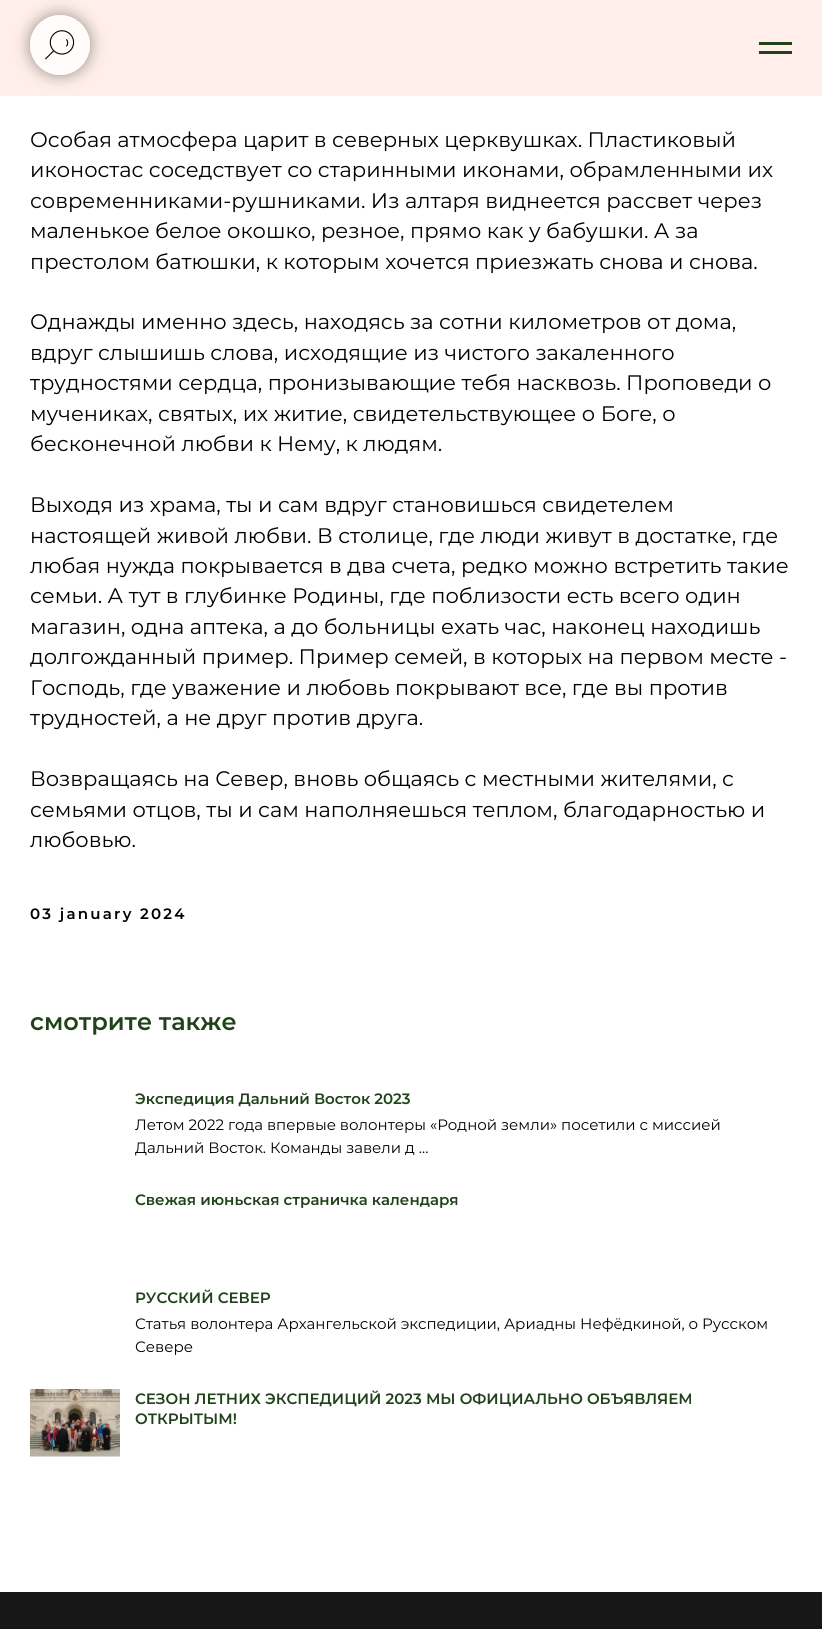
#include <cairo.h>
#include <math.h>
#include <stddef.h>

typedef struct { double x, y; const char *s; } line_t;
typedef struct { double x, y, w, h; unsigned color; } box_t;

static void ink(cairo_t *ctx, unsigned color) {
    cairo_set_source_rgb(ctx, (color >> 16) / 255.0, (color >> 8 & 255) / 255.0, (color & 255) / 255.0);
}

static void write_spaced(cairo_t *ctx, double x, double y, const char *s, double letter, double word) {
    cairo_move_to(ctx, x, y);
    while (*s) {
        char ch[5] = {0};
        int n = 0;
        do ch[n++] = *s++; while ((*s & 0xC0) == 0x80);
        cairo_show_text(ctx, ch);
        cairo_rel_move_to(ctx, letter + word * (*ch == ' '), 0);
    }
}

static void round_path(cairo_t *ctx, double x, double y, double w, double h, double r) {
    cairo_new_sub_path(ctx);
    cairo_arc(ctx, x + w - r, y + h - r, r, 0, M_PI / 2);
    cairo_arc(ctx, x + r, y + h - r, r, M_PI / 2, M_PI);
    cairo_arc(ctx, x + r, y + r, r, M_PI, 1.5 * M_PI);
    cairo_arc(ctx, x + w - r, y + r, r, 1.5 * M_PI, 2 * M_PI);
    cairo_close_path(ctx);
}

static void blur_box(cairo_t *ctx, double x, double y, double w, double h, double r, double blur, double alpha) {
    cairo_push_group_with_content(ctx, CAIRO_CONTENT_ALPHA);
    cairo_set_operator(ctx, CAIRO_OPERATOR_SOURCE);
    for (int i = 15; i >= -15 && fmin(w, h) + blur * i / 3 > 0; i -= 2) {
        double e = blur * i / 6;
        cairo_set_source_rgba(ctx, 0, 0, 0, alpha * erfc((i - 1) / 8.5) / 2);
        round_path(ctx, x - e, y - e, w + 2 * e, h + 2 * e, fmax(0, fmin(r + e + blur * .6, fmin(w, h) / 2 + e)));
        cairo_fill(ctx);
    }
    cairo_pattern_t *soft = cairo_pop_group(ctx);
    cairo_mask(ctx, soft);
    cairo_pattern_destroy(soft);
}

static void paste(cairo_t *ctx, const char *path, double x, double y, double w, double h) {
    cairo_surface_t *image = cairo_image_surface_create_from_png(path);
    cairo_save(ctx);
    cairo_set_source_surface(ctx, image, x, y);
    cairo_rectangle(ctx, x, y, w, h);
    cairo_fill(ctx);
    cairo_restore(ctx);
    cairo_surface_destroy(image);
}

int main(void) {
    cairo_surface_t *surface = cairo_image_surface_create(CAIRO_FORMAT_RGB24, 822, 1629);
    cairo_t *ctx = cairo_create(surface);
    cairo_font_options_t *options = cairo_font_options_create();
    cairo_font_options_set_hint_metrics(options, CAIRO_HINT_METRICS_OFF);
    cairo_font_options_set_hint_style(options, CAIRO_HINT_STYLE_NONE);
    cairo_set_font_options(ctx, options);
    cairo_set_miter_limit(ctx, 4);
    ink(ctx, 0xFFFFFF);
    cairo_paint(ctx);
    {
        static const box_t items[] = {
            {0, 0, 822, 96, 0xFFEEE9},
            {759, 42, 33, 3, 0x20421A},
            {759, 51, 33, 3, 0x20421A},
        };
        for (size_t i = 0; i < sizeof items / sizeof *items; i++) {
            ink(ctx, items[i].color);
            cairo_rectangle(ctx, items[i].x, items[i].y, items[i].w, items[i].h);
            cairo_fill(ctx);
        }
    }
    cairo_save(ctx);
    cairo_set_fill_rule(ctx, CAIRO_FILL_RULE_EVEN_ODD);
    cairo_new_path(ctx);
    cairo_move_to(ctx, 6, 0);
    cairo_line_to(ctx, 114, 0);
    cairo_line_to(ctx, 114, 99);
    cairo_line_to(ctx, 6, 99);
    cairo_close_path(ctx);
    cairo_move_to(ctx, 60, 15);
    cairo_curve_to(ctx, 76.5, 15, 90, 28.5, 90, 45);
    cairo_curve_to(ctx, 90, 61.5, 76.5, 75, 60, 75);
    cairo_curve_to(ctx, 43.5, 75, 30, 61.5, 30, 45);
    cairo_curve_to(ctx, 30, 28.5, 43.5, 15, 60, 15);
    cairo_close_path(ctx);
    cairo_clip(ctx);
    ink(ctx, 0x000000);
    blur_box(ctx, 30, 15, 60, 60, 30, 7.5, 0.4);
    cairo_restore(ctx);
    cairo_set_source_rgba(ctx, 1, 1, 1, 0.8);
    cairo_arc(ctx, 60, 45, 30, 0, 2 * M_PI);
    cairo_fill(ctx);
    paste(ctx, "media/1.png", 45, 30, 30, 30);
    cairo_select_font_face(ctx, "Montserrat", CAIRO_FONT_SLANT_NORMAL, CAIRO_FONT_WEIGHT_NORMAL);
    cairo_set_font_size(ctx, 21);
    ink(ctx, 0x000000);
    {
        static const line_t items[] = {
            {30, 147, "Особая атмосфера царит в северных церквушках. Пластиковый"},
            {30, 177, "иконостас соседствует со старинными иконами, обрамленными их"},
            {30, 208, "современниками-рушниками. Из алтаря виднеется рассвет через"},
            {30, 238, "маленькое белое окошко, резное, прямо как у бабушки. А за"},
            {30, 269, "престолом батюшки, к которым хочется приезжать снова и снова."},
            {30, 329, "Однажды именно здесь, находясь за сотни километров от дома,"},
            {30, 360, "вдруг слышишь слова, исходящие из чистого закаленного"},
            {30, 390, "трудностями сердца, пронизывающие тебя насквозь. Проповеди о"},
            {30, 421, "мучениках, святых, их житие, свидетельствующее о Боге, о"},
            {30, 451, "бесконечной любви к Нему, к людям."},
            {30, 512, "Выходя из храма, ты и сам вдруг становишься свидетелем"},
            {30, 543, "настоящей живой любви. В столице, где люди живут в достатке, где"},
            {30, 573, "любая нужда покрывается в два счета, редко можно встретить такие"},
            {30, 603, "семьи. А тут в глубинке Родины, где поблизости есть всего один"},
            {30, 634, "магазин, одна аптека, а до больницы ехать час, наконец находишь"},
            {30, 664, "долгожданный пример. Пример семей, в которых на первом месте -"},
            {30, 695, "Господь, где уважение и любовь покрывают все, где вы против"},
            {30, 725, "трудностей, а не друг против друга."},
            {30, 786, "Возвращаясь на Север, вновь общаясь с местными жителями, с"},
            {30, 817, "семьями отцов, ты и сам наполняешься теплом, благодарностью и"},
            {30, 847, "любовью."},
        };
        for (size_t i = 0; i < sizeof items / sizeof *items; i++) {
            cairo_move_to(ctx, items[i].x, items[i].y);
            cairo_show_text(ctx, items[i].s);
        }
    }
    cairo_select_font_face(ctx, "Montserrat SemiBold", CAIRO_FONT_SLANT_NORMAL, CAIRO_FONT_WEIGHT_NORMAL);
    cairo_set_font_size(ctx, 15);
    write_spaced(ctx, 30, 919, "03 january 2024", 2.25, 0);
    cairo_set_font_size(ctx, 24);
    ink(ctx, 0x20421A);
    cairo_move_to(ctx, 30, 1030);
    cairo_show_text(ctx, "смотрите также");
    cairo_set_font_size(ctx, 15);
    cairo_move_to(ctx, 135, 1104);
    cairo_show_text(ctx, "Экспедиция Дальний Восток 2023");
    cairo_select_font_face(ctx, "Montserrat", CAIRO_FONT_SLANT_NORMAL, CAIRO_FONT_WEIGHT_NORMAL);
    ink(ctx, 0x000000);
    cairo_move_to(ctx, 135, 1130);
    cairo_show_text(ctx, "Летом 2022 года впервые волонтеры «Родной земли» посетили с миссией");
    cairo_move_to(ctx, 135, 1153);
    cairo_show_text(ctx, "Дальний Восток. Команды завели д ...");
    cairo_select_font_face(ctx, "Montserrat SemiBold", CAIRO_FONT_SLANT_NORMAL, CAIRO_FONT_WEIGHT_NORMAL);
    ink(ctx, 0x20421A);
    cairo_move_to(ctx, 135, 1205);
    cairo_show_text(ctx, "Свежая июньская страничка календаря");
    cairo_move_to(ctx, 135, 1303);
    cairo_show_text(ctx, "РУССКИЙ СЕВЕР");
    cairo_select_font_face(ctx, "Montserrat", CAIRO_FONT_SLANT_NORMAL, CAIRO_FONT_WEIGHT_NORMAL);
    ink(ctx, 0x000000);
    cairo_move_to(ctx, 135, 1329);
    cairo_show_text(ctx, "Статья волонтера Архангельской экспедиции, Ариадны Нефёдкиной, о Русском");
    cairo_move_to(ctx, 135, 1352);
    cairo_show_text(ctx, "Севере");
    paste(ctx, "media/2.png", 30, 1389, 90, 68);
    cairo_select_font_face(ctx, "Montserrat SemiBold", CAIRO_FONT_SLANT_NORMAL, CAIRO_FONT_WEIGHT_NORMAL);
    ink(ctx, 0x20421A);
    cairo_move_to(ctx, 135, 1404);
    cairo_show_text(ctx, "СЕЗОН ЛЕТНИХ ЭКСПЕДИЦИЙ 2023 МЫ ОФИЦИАЛЬНО ОБЪЯВЛЯЕМ");
    cairo_move_to(ctx, 135, 1424);
    cairo_show_text(ctx, "ОТКРЫТЫМ!");
    ink(ctx, 0x171717);
    cairo_rectangle(ctx, 0, 1592, 822, 37);
    cairo_fill(ctx);
    cairo_surface_write_to_png(surface, "image.png");
    cairo_font_options_destroy(options);
    cairo_destroy(ctx);
    cairo_surface_destroy(surface);
    return 0;
}
